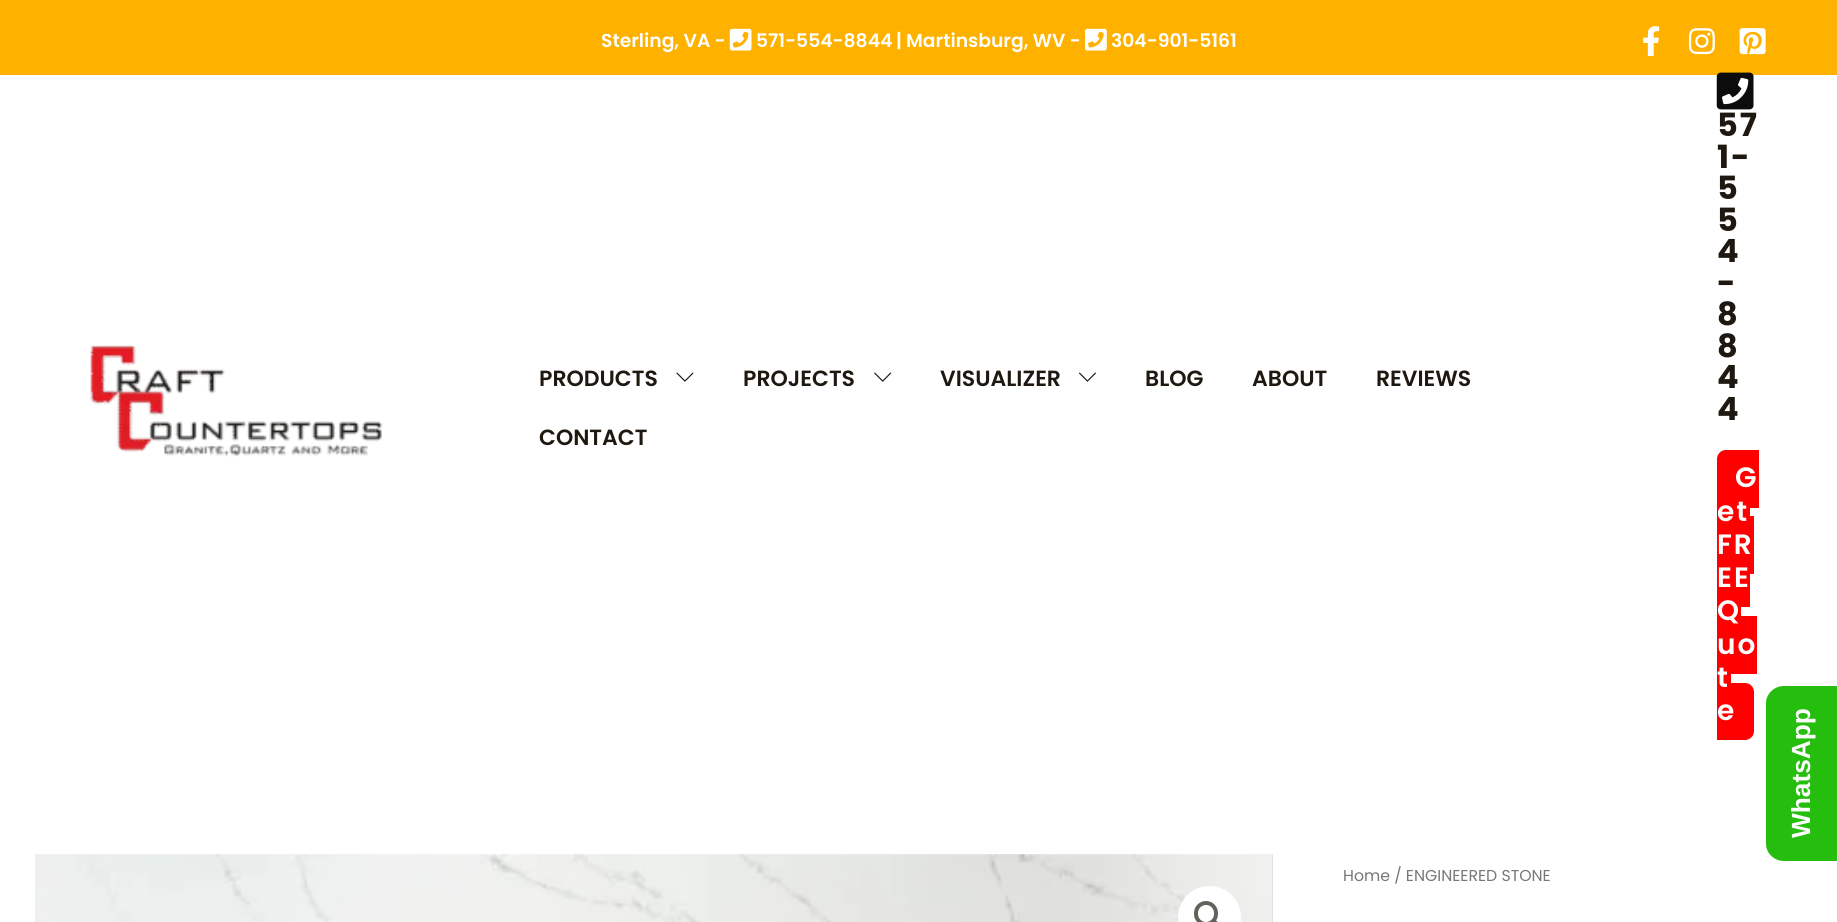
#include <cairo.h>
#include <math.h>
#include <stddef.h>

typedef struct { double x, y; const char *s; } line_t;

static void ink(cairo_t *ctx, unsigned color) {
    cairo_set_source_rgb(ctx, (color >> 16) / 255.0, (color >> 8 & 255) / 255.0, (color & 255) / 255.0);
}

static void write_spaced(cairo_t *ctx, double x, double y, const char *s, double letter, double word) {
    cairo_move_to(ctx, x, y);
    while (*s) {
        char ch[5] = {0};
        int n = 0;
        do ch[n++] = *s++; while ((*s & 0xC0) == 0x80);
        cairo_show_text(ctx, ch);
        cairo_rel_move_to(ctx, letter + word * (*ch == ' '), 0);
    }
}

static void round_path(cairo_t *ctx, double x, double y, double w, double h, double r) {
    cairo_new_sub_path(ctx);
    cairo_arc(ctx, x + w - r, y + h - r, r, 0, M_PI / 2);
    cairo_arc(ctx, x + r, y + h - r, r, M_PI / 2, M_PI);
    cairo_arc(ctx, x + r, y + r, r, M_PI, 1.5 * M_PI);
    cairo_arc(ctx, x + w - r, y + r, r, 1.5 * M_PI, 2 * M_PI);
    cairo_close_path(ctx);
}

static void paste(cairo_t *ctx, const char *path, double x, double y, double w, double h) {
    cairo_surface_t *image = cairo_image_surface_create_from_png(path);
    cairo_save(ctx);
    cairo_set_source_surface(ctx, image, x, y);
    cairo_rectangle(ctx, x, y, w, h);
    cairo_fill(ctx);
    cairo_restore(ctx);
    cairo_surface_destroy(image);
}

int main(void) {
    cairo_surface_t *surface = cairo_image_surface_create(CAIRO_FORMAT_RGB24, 1837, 922);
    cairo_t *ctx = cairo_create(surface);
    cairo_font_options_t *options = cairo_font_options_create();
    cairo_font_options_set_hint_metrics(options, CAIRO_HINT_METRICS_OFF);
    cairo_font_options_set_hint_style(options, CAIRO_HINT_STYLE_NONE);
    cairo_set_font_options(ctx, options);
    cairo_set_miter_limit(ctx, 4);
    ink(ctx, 0xFFFFFF);
    cairo_paint(ctx);
    ink(ctx, 0xFFB100);
    cairo_rectangle(ctx, 0, 0, 1837, 75);
    cairo_fill(ctx);
    cairo_select_font_face(ctx, "Poppins SemiBold", CAIRO_FONT_SLANT_NORMAL, CAIRO_FONT_WEIGHT_NORMAL);
    cairo_set_font_size(ctx, 18.75);
    ink(ctx, 0xFEFEFE);
    cairo_move_to(ctx, 601, 47);
    cairo_show_text(ctx, "Sterling, VA -");
    paste(ctx, "media/1.png", 729, 28, 23, 23);
    {
        static const line_t items[] = {
            {756, 47, "571-554-8844"},
            {896, 47, "|"},
            {906, 47, "Martinsburg, WV -"},
        };
        for (size_t i = 0; i < sizeof items / sizeof *items; i++) {
            cairo_move_to(ctx, items[i].x, items[i].y);
            cairo_show_text(ctx, items[i].s);
        }
    }
    paste(ctx, "media/2.png", 1085, 28, 22, 23);
    cairo_move_to(ctx, 1111, 47);
    cairo_show_text(ctx, "304-901-5161");
    paste(ctx, "media/3.png", 1643, 26, 17, 30);
    paste(ctx, "media/4.png", 1688, 28, 27, 27);
    paste(ctx, "media/5.png", 1739, 28, 27, 27);
    paste(ctx, "media/6.png", 89, 345, 293, 112);
    cairo_set_font_size(ctx, 22);
    ink(ctx, 0x1E1810);
    cairo_move_to(ctx, 539, 386);
    cairo_show_text(ctx, "PRODUCTS");
    paste(ctx, "media/7.png", 676, 372, 18, 10);
    cairo_move_to(ctx, 743, 386);
    cairo_show_text(ctx, "PROJECTS");
    paste(ctx, "media/8.png", 874, 372, 18, 10);
    cairo_move_to(ctx, 940, 386);
    cairo_show_text(ctx, "VISUALIZER");
    paste(ctx, "media/9.png", 1079, 372, 17, 10);
    {
        static const line_t items[] = {
            {1145, 386, "BLOG"},
            {1252, 386, "ABOUT"},
            {1376, 386, "REVIEWS"},
            {539, 445, "CONTACT"},
        };
        for (size_t i = 0; i < sizeof items / sizeof *items; i++) {
            cairo_move_to(ctx, items[i].x, items[i].y);
            cairo_show_text(ctx, items[i].s);
        }
    }
    paste(ctx, "media/10.png", 1716, 72, 38, 38);
    cairo_select_font_face(ctx, "Poppins", CAIRO_FONT_SLANT_NORMAL, CAIRO_FONT_WEIGHT_BOLD);
    cairo_set_font_size(ctx, 32);
    {
        static const line_t items[] = {
            {1717, 136, "57"},
            {1717, 168, "1-"},
            {1717, 199, "5"},
            {1717, 231, "5"},
            {1717, 262, "4"},
            {1717, 294, "-"},
            {1717, 325, "8"},
            {1717, 357, "8"},
            {1717, 388, "4"},
            {1717, 420, "4"},
        };
        for (size_t i = 0; i < sizeof items / sizeof *items; i++) {
            write_spaced(ctx, items[i].x, items[i].y, items[i].s, 2, 0);
        }
    }
    ink(ctx, 0xFF0000);
    cairo_new_path(ctx);
    cairo_move_to(ctx, 1726, 450);
    cairo_line_to(ctx, 1759, 450);
    cairo_line_to(ctx, 1759, 508);
    cairo_line_to(ctx, 1726, 508);
    cairo_curve_to(ctx, 1721, 508, 1717, 504, 1717, 499);
    cairo_line_to(ctx, 1717, 459);
    cairo_curve_to(ctx, 1717, 454, 1721, 450, 1726, 450);
    cairo_close_path(ctx);
    cairo_fill(ctx);
    cairo_select_font_face(ctx, "Poppins SemiBold", CAIRO_FONT_SLANT_NORMAL, CAIRO_FONT_WEIGHT_NORMAL);
    cairo_set_font_size(ctx, 28);
    ink(ctx, 0xFEFEFE);
    write_spaced(ctx, 1735, 487, "G", 2, 0);
    ink(ctx, 0xFF0000);
    cairo_rectangle(ctx, 1717, 499, 33, 17);
    cairo_fill(ctx);
    cairo_rectangle(ctx, 1717, 516, 37, 58);
    cairo_fill(ctx);
    ink(ctx, 0xFEFEFE);
    write_spaced(ctx, 1717, 521, "et", 2, 0);
    write_spaced(ctx, 1717, 554, "FR", 2, 0);
    ink(ctx, 0xFF0000);
    cairo_rectangle(ctx, 1717, 574, 33, 33);
    cairo_fill(ctx);
    ink(ctx, 0xFEFEFE);
    write_spaced(ctx, 1717, 587, "EE", 2, 0);
    ink(ctx, 0xFF0000);
    cairo_rectangle(ctx, 1717, 607, 24, 9);
    cairo_fill(ctx);
    cairo_rectangle(ctx, 1717, 616, 40, 58);
    cairo_fill(ctx);
    ink(ctx, 0xFEFEFE);
    write_spaced(ctx, 1717, 620, "Q", 2, 0);
    write_spaced(ctx, 1717, 654, "uo", 2, 0);
    ink(ctx, 0xFF0000);
    cairo_rectangle(ctx, 1717, 674, 14, 9);
    cairo_fill(ctx);
    cairo_new_path(ctx);
    cairo_move_to(ctx, 1717, 683);
    cairo_line_to(ctx, 1745, 683);
    cairo_curve_to(ctx, 1750, 683, 1754, 687, 1754, 692);
    cairo_line_to(ctx, 1754, 731);
    cairo_curve_to(ctx, 1754, 736, 1750, 740, 1745, 740);
    cairo_line_to(ctx, 1717, 740);
    cairo_close_path(ctx);
    cairo_fill(ctx);
    ink(ctx, 0xFEFEFE);
    write_spaced(ctx, 1717, 687, "t", 2, 0);
    write_spaced(ctx, 1717, 720, "e", 2, 0);
    paste(ctx, "media/11.png", 35, 854, 1238, 68);
    paste(ctx, "media/12.png", 1272, 854, 1, 68);
    ink(ctx, 0xFFFFFF);
    cairo_arc(ctx, 1209.5, 917.5, 31.5, 0, 2 * M_PI);
    cairo_fill(ctx);
    round_path(ctx, 1196, 903, 20, 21, 10);
    ink(ctx, 0x62615C);
    cairo_set_line_width(ctx, 4);
    cairo_stroke(ctx);
    cairo_new_path(ctx);
    cairo_move_to(ctx, 1213, 920);
    cairo_curve_to(ctx, 1215, 918, 1218, 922.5, 1219, 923.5);
    cairo_curve_to(ctx, 1220.5, 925, 1225, 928, 1223, 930);
    cairo_curve_to(ctx, 1221, 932, 1218, 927, 1217, 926);
    cairo_curve_to(ctx, 1215.5, 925, 1211, 922, 1213, 920);
    cairo_close_path(ctx);
    cairo_fill(ctx);
    cairo_select_font_face(ctx, "Poppins", CAIRO_FONT_SLANT_NORMAL, CAIRO_FONT_WEIGHT_NORMAL);
    cairo_set_font_size(ctx, 15.75);
    ink(ctx, 0x777777);
    cairo_move_to(ctx, 1343, 881);
    cairo_show_text(ctx, "Home / ENGINEERED STONE");
    ink(ctx, 0x26BE0E);
    cairo_new_path(ctx);
    cairo_move_to(ctx, 1766, 844);
    cairo_line_to(ctx, 1766, 703);
    cairo_curve_to(ctx, 1766, 694, 1774, 686, 1784, 686);
    cairo_line_to(ctx, 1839, 686);
    cairo_line_to(ctx, 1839, 861);
    cairo_line_to(ctx, 1784, 861);
    cairo_curve_to(ctx, 1774, 861, 1766, 853, 1766, 844);
    cairo_close_path(ctx);
    cairo_fill(ctx);
    cairo_select_font_face(ctx, "Liberation Sans", CAIRO_FONT_SLANT_NORMAL, CAIRO_FONT_WEIGHT_BOLD);
    cairo_set_font_size(ctx, 26.25);
    ink(ctx, 0xFEFEFE);
    cairo_save(ctx);
    cairo_translate(ctx, 1810, 838);
    cairo_rotate(ctx, -90 * M_PI / 180);
    cairo_move_to(ctx, 0, 0);
    cairo_show_text(ctx, "WhatsApp");
    cairo_restore(ctx);
    cairo_surface_write_to_png(surface, "image.png");
    cairo_font_options_destroy(options);
    cairo_destroy(ctx);
    cairo_surface_destroy(surface);
    return 0;
}
